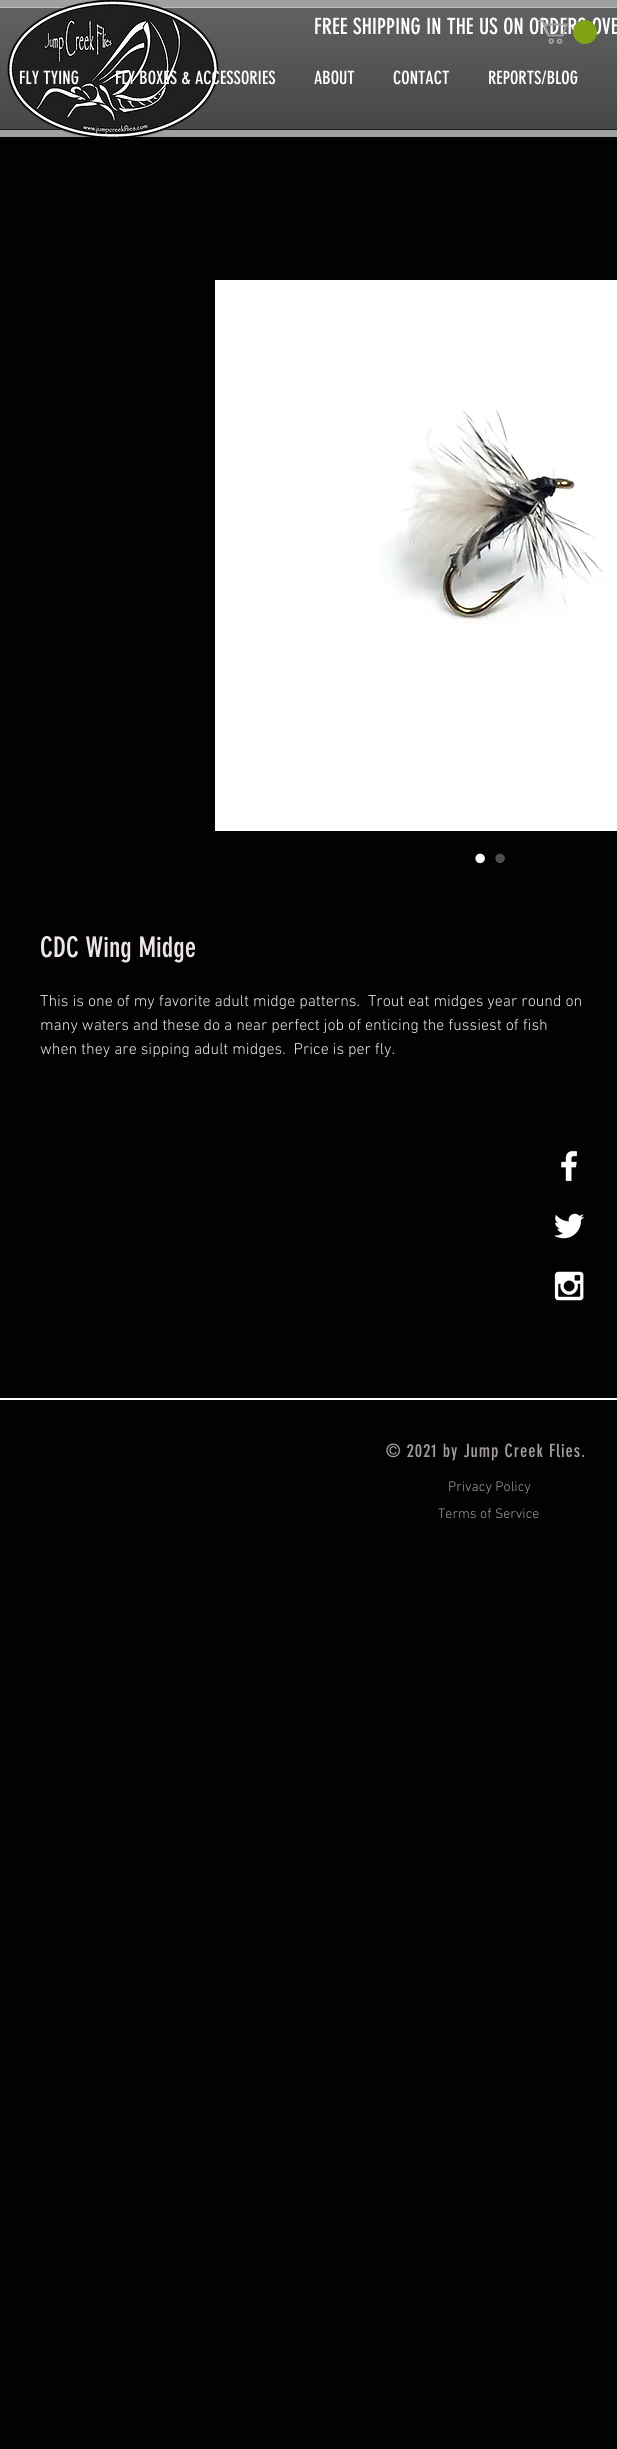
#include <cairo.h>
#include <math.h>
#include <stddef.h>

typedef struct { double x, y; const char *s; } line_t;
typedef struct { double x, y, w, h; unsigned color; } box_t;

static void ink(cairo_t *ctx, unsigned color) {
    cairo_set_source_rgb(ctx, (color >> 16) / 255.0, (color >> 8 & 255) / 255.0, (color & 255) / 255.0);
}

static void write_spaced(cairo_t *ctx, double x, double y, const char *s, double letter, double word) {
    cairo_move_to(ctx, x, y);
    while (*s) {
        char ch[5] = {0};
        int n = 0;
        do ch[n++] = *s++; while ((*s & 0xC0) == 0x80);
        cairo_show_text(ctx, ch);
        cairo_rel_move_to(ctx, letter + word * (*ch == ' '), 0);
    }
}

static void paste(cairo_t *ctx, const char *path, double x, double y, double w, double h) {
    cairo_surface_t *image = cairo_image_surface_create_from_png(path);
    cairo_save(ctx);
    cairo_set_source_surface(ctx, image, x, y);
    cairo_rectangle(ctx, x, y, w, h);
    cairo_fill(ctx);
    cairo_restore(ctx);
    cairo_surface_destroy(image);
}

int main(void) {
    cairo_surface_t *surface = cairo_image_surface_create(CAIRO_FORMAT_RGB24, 617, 2449);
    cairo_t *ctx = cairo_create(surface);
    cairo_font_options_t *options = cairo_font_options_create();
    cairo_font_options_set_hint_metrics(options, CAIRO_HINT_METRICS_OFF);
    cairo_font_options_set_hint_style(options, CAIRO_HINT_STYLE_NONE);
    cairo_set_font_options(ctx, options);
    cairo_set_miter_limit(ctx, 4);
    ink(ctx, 0x020202);
    cairo_paint(ctx);
    ink(ctx, 0x2B2A2A);
    cairo_rectangle(ctx, 0, 8, 617, 121);
    cairo_fill(ctx);
    paste(ctx, "media/1.png", 0, 8, 617, 121);
    {
        static const box_t items[] = {
            {0, 129, 617, 1, 0x1D1C1C},
            {0, 7, 617, 1, 0xC0C0C0},
            {0, 0, 617, 7, 0xA0A09F},
            {0, 130, 617, 7, 0xA0A09F},
        };
        for (size_t i = 0; i < sizeof items / sizeof *items; i++) {
            ink(ctx, items[i].color);
            cairo_rectangle(ctx, items[i].x, items[i].y, items[i].w, items[i].h);
            cairo_fill(ctx);
        }
    }
    paste(ctx, "media/2.png", 7, 0, 212, 137);
    cairo_select_font_face(ctx, "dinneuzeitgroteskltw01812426", CAIRO_FONT_SLANT_NORMAL, CAIRO_FONT_WEIGHT_NORMAL);
    cairo_set_font_size(ctx, 22);
    ink(ctx, 0xFFFFFF);
    cairo_move_to(ctx, 314, 34);
    cairo_show_text(ctx, "FREE SHIPPING IN THE US ON ORDERS OVE");
    paste(ctx, "media/3.png", 538, 20, 59, 24);
    cairo_set_font_size(ctx, 18);
    {
        static const line_t items[] = {
            {19, 84, "FLY TYING"},
            {115, 84, "FLY BOXES & ACCESSORIES"},
            {314, 84, "ABOUT"},
            {393, 84, "CONTACT"},
            {488, 84, "REPORTS/BLOG"},
        };
        for (size_t i = 0; i < sizeof items / sizeof *items; i++) {
            cairo_move_to(ctx, items[i].x, items[i].y);
            cairo_show_text(ctx, items[i].s);
        }
    }
    paste(ctx, "media/4.png", 215, 280, 402, 551);
    cairo_select_font_face(ctx, "Liberation Sans", CAIRO_FONT_SLANT_NORMAL, CAIRO_FONT_WEIGHT_NORMAL);
    cairo_set_font_size(ctx, 35);
    cairo_move_to(ctx, 474, 870);
    cairo_show_text(ctx, "•");
    ink(ctx, 0x4E4E4E);
    cairo_move_to(ctx, 494, 870);
    cairo_show_text(ctx, "•");
    cairo_select_font_face(ctx, "dinneuzeitgroteskltw01812426", CAIRO_FONT_SLANT_NORMAL, CAIRO_FONT_WEIGHT_NORMAL);
    cairo_set_font_size(ctx, 28);
    ink(ctx, 0xEEE6E6);
    cairo_move_to(ctx, 40, 957);
    cairo_show_text(ctx, "CDC Wing Midge");
    cairo_select_font_face(ctx, "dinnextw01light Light", CAIRO_FONT_SLANT_NORMAL, CAIRO_FONT_WEIGHT_NORMAL);
    cairo_set_font_size(ctx, 16);
    {
        static const line_t items[] = {
            {40, 1006, "This is one of my favorite adult midge patterns.  Trout eat midges year round on"},
            {40, 1030, "many waters and these do a near perfect job of enticing the fussiest of fish"},
            {40, 1054, "when they are sipping adult midges.  Price is per fly."},
        };
        for (size_t i = 0; i < sizeof items / sizeof *items; i++) {
            cairo_move_to(ctx, items[i].x, items[i].y);
            cairo_show_text(ctx, items[i].s);
        }
    }
    paste(ctx, "media/5.png", 561, 1150, 17, 32);
    paste(ctx, "media/6.png", 554, 1213, 31, 26);
    paste(ctx, "media/7.png", 554, 1271, 30, 30);
    ink(ctx, 0xFFFFFF);
    cairo_rectangle(ctx, 0, 1398, 617, 2);
    cairo_fill(ctx);
    cairo_select_font_face(ctx, "dinneuzeitgroteskltw01812426", CAIRO_FONT_SLANT_NORMAL, CAIRO_FONT_WEIGHT_NORMAL);
    cairo_set_font_size(ctx, 18);
    ink(ctx, 0xA29C9C);
    write_spaced(ctx, 386, 1457, "© 2021 by Jump Creek Flies.", 0.9, 0);
    cairo_select_font_face(ctx, "dinnextw01light Light", CAIRO_FONT_SLANT_NORMAL, CAIRO_FONT_WEIGHT_NORMAL);
    cairo_set_font_size(ctx, 14);
    cairo_move_to(ctx, 448, 1491);
    cairo_show_text(ctx, "Privacy Policy");
    cairo_move_to(ctx, 438, 1518);
    cairo_show_text(ctx, "Terms of Service");
    cairo_surface_write_to_png(surface, "image.png");
    cairo_font_options_destroy(options);
    cairo_destroy(ctx);
    cairo_surface_destroy(surface);
    return 0;
}
